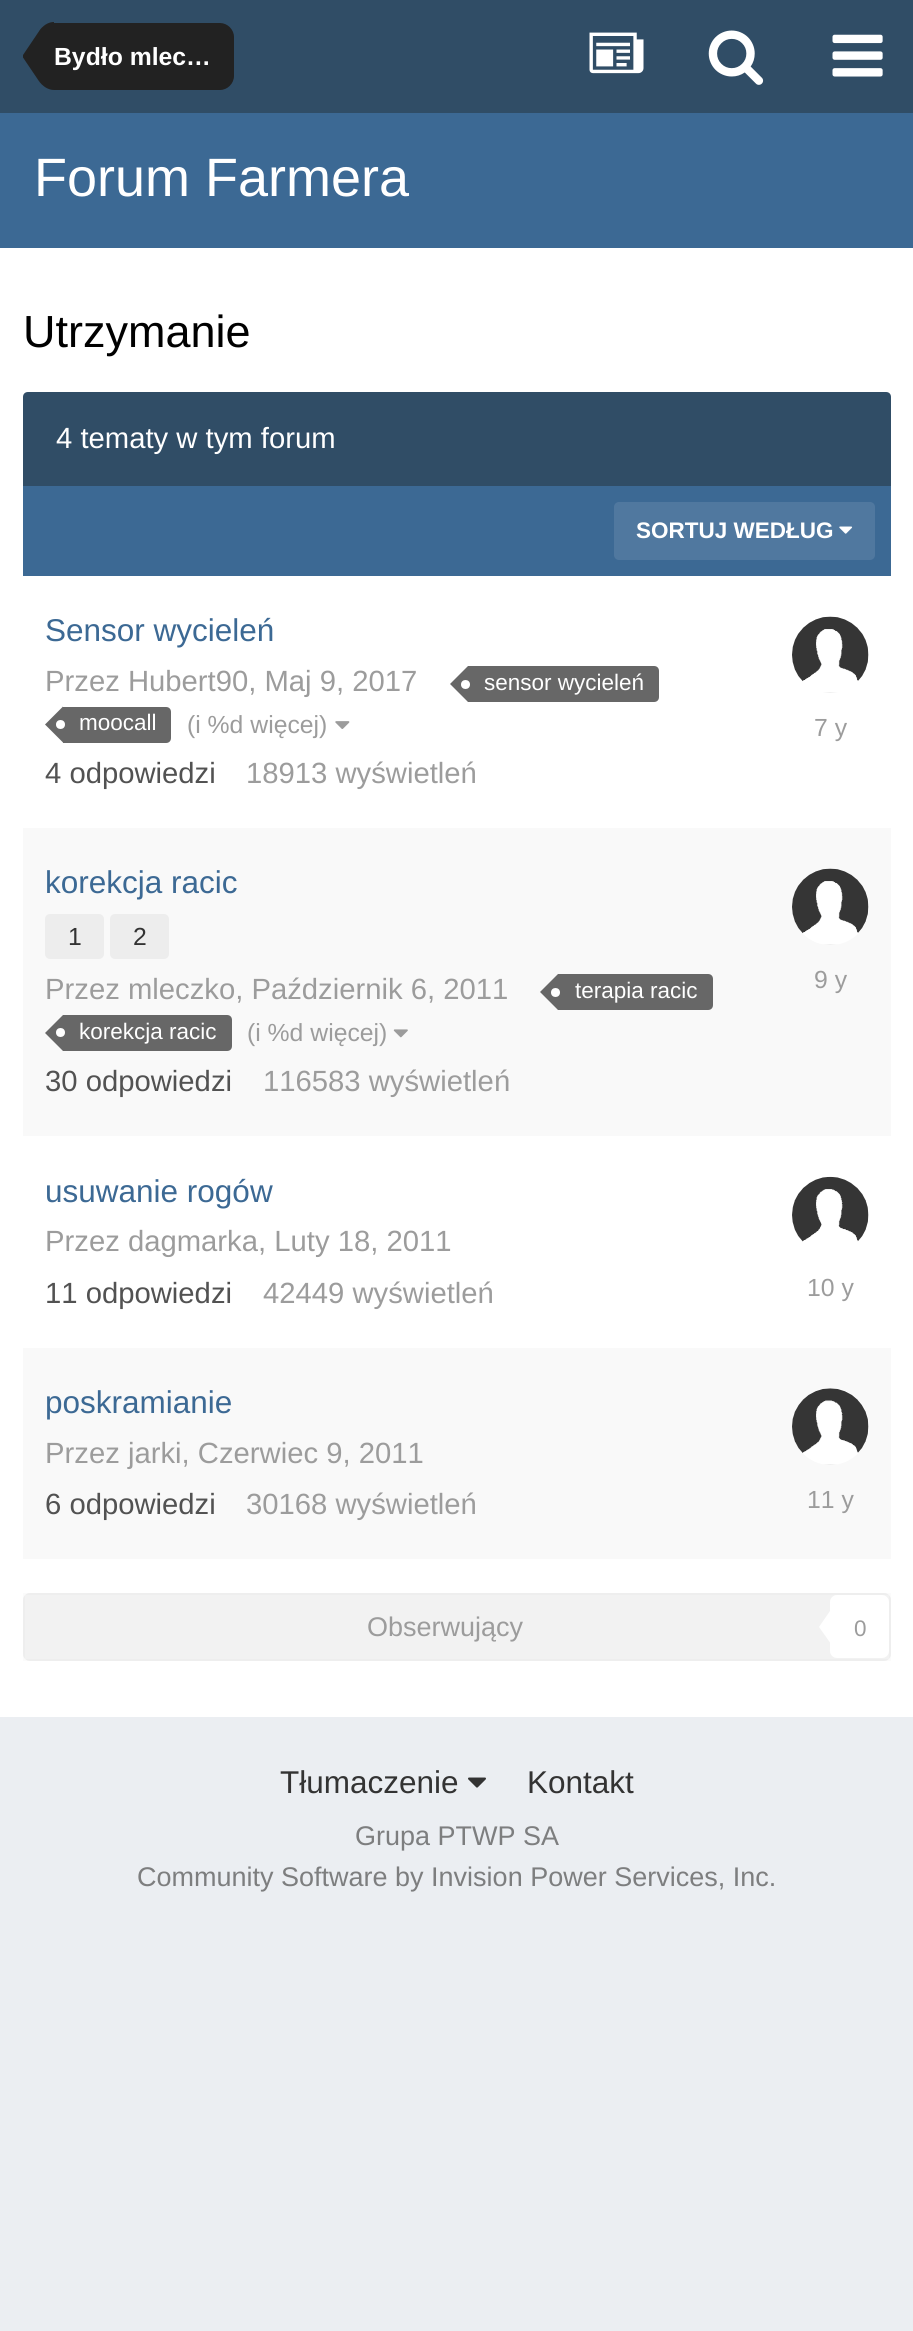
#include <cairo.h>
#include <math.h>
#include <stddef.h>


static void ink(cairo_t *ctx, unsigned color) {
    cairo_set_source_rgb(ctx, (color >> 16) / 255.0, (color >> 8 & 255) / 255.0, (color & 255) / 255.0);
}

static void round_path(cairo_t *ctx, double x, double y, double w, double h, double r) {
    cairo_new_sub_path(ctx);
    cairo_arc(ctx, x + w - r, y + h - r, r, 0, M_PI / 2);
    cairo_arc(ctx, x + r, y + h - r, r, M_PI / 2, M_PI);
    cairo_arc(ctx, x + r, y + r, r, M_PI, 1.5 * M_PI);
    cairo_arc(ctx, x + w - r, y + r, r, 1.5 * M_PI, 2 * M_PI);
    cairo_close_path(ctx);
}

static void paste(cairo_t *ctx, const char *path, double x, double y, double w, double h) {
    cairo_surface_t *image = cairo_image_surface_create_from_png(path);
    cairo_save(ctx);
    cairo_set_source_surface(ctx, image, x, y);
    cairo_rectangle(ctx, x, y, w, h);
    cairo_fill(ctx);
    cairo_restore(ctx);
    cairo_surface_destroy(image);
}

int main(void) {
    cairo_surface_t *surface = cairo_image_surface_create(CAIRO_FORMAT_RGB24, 913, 2331);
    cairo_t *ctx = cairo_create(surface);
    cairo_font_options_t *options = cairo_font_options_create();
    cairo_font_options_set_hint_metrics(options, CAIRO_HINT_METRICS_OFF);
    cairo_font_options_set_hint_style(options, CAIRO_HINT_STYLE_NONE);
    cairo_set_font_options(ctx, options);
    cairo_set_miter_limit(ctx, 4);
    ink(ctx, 0xEBEEF2);
    cairo_paint(ctx);
    ink(ctx, 0x304D66);
    cairo_rectangle(ctx, 0, 0, 913, 113);
    cairo_fill(ctx);
    ink(ctx, 0x222222);
    cairo_new_path(ctx);
    cairo_move_to(ctx, 54, 23);
    cairo_line_to(ctx, 220, 23);
    cairo_curve_to(ctx, 227.5, 23, 234, 29.5, 234, 37);
    cairo_line_to(ctx, 234, 76);
    cairo_curve_to(ctx, 234, 83.5, 227.5, 90, 220, 90);
    cairo_line_to(ctx, 54, 90);
    cairo_close_path(ctx);
    cairo_fill(ctx);
    cairo_new_path(ctx);
    cairo_move_to(ctx, 23, 56);
    cairo_line_to(ctx, 54, 56);
    cairo_line_to(ctx, 54, 90);
    cairo_curve_to(ctx, 48.5, 90, 42.5, 86.5, 38.5, 80.5);
    cairo_line_to(ctx, 23, 57.5);
    cairo_close_path(ctx);
    cairo_fill(ctx);
    cairo_new_path(ctx);
    cairo_move_to(ctx, 54, 22);
    cairo_line_to(ctx, 54, 56);
    cairo_line_to(ctx, 23, 56);
    cairo_line_to(ctx, 23, 55);
    cairo_line_to(ctx, 40.5, 29);
    cairo_curve_to(ctx, 44.5, 24.5, 49, 22, 54, 22);
    cairo_close_path(ctx);
    cairo_fill(ctx);
    cairo_select_font_face(ctx, "Liberation Sans", CAIRO_FONT_SLANT_NORMAL, CAIRO_FONT_WEIGHT_BOLD);
    cairo_set_font_size(ctx, 24.75);
    ink(ctx, 0xFFFFFF);
    cairo_move_to(ctx, 54, 65);
    cairo_show_text(ctx, "Bydło mlec…");
    paste(ctx, "media/1.png", 589, 32, 55, 42);
    paste(ctx, "media/2.png", 708, 30, 56, 55);
    paste(ctx, "media/3.png", 832, 34, 51, 43);
    ink(ctx, 0x3C6994);
    cairo_rectangle(ctx, 0, 113, 913, 135);
    cairo_fill(ctx);
    cairo_select_font_face(ctx, "Liberation Sans", CAIRO_FONT_SLANT_NORMAL, CAIRO_FONT_WEIGHT_NORMAL);
    cairo_set_font_size(ctx, 54);
    ink(ctx, 0xFFFFFF);
    cairo_move_to(ctx, 34, 196);
    cairo_show_text(ctx, "Forum Farmera");
    cairo_rectangle(ctx, 0, 248, 913, 1469);
    cairo_fill(ctx);
    cairo_set_font_size(ctx, 45);
    ink(ctx, 0x000000);
    cairo_move_to(ctx, 23, 347);
    cairo_show_text(ctx, "Utrzymanie");
    ink(ctx, 0x304D66);
    cairo_new_path(ctx);
    cairo_move_to(ctx, 28, 392);
    cairo_line_to(ctx, 886, 392);
    cairo_curve_to(ctx, 889, 392, 891, 394, 891, 397);
    cairo_line_to(ctx, 891, 486);
    cairo_line_to(ctx, 23, 486);
    cairo_line_to(ctx, 23, 397);
    cairo_curve_to(ctx, 23, 394, 25, 392, 28, 392);
    cairo_close_path(ctx);
    cairo_fill(ctx);
    cairo_set_font_size(ctx, 29.25);
    ink(ctx, 0xFFFFFF);
    cairo_move_to(ctx, 56, 448);
    cairo_show_text(ctx, "4 tematy w tym forum");
    ink(ctx, 0x3C6994);
    cairo_rectangle(ctx, 23, 486, 868, 90);
    cairo_fill(ctx);
    ink(ctx, 0x50789F);
    round_path(ctx, 614, 502, 261, 58, 5);
    cairo_fill(ctx);
    cairo_select_font_face(ctx, "Liberation Sans", CAIRO_FONT_SLANT_NORMAL, CAIRO_FONT_WEIGHT_BOLD);
    cairo_set_font_size(ctx, 22.5);
    ink(ctx, 0xFFFFFF);
    cairo_move_to(ctx, 636, 538);
    cairo_show_text(ctx, "SORTUJ WEDŁUG");
    paste(ctx, "media/4.png", 839, 526, 14, 8);
    cairo_select_font_face(ctx, "Liberation Sans", CAIRO_FONT_SLANT_NORMAL, CAIRO_FONT_WEIGHT_NORMAL);
    cairo_set_font_size(ctx, 31.5);
    ink(ctx, 0x3C6994);
    cairo_move_to(ctx, 45, 641);
    cairo_show_text(ctx, "Sensor wycieleń");
    cairo_set_font_size(ctx, 29.25);
    ink(ctx, 0x9C9C9C);
    cairo_move_to(ctx, 45, 691);
    cairo_show_text(ctx, "Przez Hubert90, Maj 9, 2017");
    ink(ctx, 0x676767);
    cairo_new_path(ctx);
    cairo_move_to(ctx, 468, 666);
    cairo_line_to(ctx, 654, 666);
    cairo_curve_to(ctx, 657, 666, 659, 668, 659, 671);
    cairo_line_to(ctx, 659, 697);
    cairo_curve_to(ctx, 659, 700, 657, 702, 654, 702);
    cairo_line_to(ctx, 468, 702);
    cairo_close_path(ctx);
    cairo_fill(ctx);
    cairo_new_path(ctx);
    cairo_move_to(ctx, 468, 666);
    cairo_line_to(ctx, 468, 702);
    cairo_line_to(ctx, 450, 684);
    cairo_close_path(ctx);
    cairo_fill(ctx);
    cairo_set_font_size(ctx, 22.5);
    ink(ctx, 0xFFFFFF);
    cairo_move_to(ctx, 484, 690);
    cairo_show_text(ctx, "sensor wycieleń");
    cairo_new_path(ctx);
    cairo_arc(ctx, 465.5, 684.5, 4.5, 0, 2 * M_PI);
    cairo_fill(ctx);
    ink(ctx, 0x676767);
    cairo_new_path(ctx);
    cairo_move_to(ctx, 63, 707);
    cairo_line_to(ctx, 166, 707);
    cairo_curve_to(ctx, 169, 707, 171, 709, 171, 712);
    cairo_line_to(ctx, 171, 738);
    cairo_curve_to(ctx, 171, 741, 169, 743, 166, 743);
    cairo_line_to(ctx, 63, 743);
    cairo_close_path(ctx);
    cairo_fill(ctx);
    cairo_new_path(ctx);
    cairo_move_to(ctx, 63, 706.5);
    cairo_line_to(ctx, 63, 742.5);
    cairo_line_to(ctx, 45, 724.5);
    cairo_close_path(ctx);
    cairo_fill(ctx);
    ink(ctx, 0xFFFFFF);
    cairo_move_to(ctx, 79, 730);
    cairo_show_text(ctx, "moocall");
    cairo_new_path(ctx);
    cairo_arc(ctx, 60.5, 724.5, 4.5, 0, 2 * M_PI);
    cairo_fill(ctx);
    cairo_set_font_size(ctx, 24.75);
    ink(ctx, 0x9C9C9C);
    cairo_move_to(ctx, 187, 733);
    cairo_show_text(ctx, "(i %d więcej)");
    paste(ctx, "media/5.png", 335, 721, 15, 8);
    paste(ctx, "media/6.png", 792, 616, 77, 77);
    cairo_move_to(ctx, 814, 736);
    cairo_show_text(ctx, "7 y");
    cairo_set_font_size(ctx, 29.25);
    ink(ctx, 0x525252);
    cairo_move_to(ctx, 45, 783);
    cairo_show_text(ctx, "4 odpowiedzi");
    ink(ctx, 0x9C9C9C);
    cairo_move_to(ctx, 246, 783);
    cairo_show_text(ctx, "18913 wyświetleń");
    ink(ctx, 0xF9F9F9);
    cairo_rectangle(ctx, 23, 828, 868, 308);
    cairo_fill(ctx);
    cairo_set_font_size(ctx, 31.5);
    ink(ctx, 0x3C6994);
    cairo_move_to(ctx, 45, 893);
    cairo_show_text(ctx, "korekcja racic");
    ink(ctx, 0xEDEDED);
    round_path(ctx, 45, 914, 59, 45, 5);
    cairo_fill(ctx);
    cairo_set_font_size(ctx, 24.75);
    ink(ctx, 0x333333);
    cairo_move_to(ctx, 68, 945);
    cairo_show_text(ctx, "1");
    ink(ctx, 0xEDEDED);
    round_path(ctx, 110, 914, 59, 45, 5);
    cairo_fill(ctx);
    ink(ctx, 0x333333);
    cairo_move_to(ctx, 133, 945);
    cairo_show_text(ctx, "2");
    cairo_set_font_size(ctx, 29.25);
    ink(ctx, 0x9C9C9C);
    cairo_move_to(ctx, 45, 999);
    cairo_show_text(ctx, "Przez mleczko, Październik 6, 2011");
    ink(ctx, 0x676767);
    cairo_new_path(ctx);
    cairo_move_to(ctx, 558, 974);
    cairo_line_to(ctx, 708, 974);
    cairo_curve_to(ctx, 711, 974, 713, 976, 713, 979);
    cairo_line_to(ctx, 713, 1005);
    cairo_curve_to(ctx, 713, 1008, 711, 1010, 708, 1010);
    cairo_line_to(ctx, 558, 1010);
    cairo_close_path(ctx);
    cairo_fill(ctx);
    cairo_new_path(ctx);
    cairo_move_to(ctx, 558, 974);
    cairo_line_to(ctx, 558, 1010);
    cairo_line_to(ctx, 540, 992);
    cairo_close_path(ctx);
    cairo_fill(ctx);
    cairo_set_font_size(ctx, 22.5);
    ink(ctx, 0xFFFFFF);
    cairo_move_to(ctx, 575, 998);
    cairo_show_text(ctx, "terapia racic");
    cairo_new_path(ctx);
    cairo_arc(ctx, 555.5, 992.5, 4.5, 0, 2 * M_PI);
    cairo_fill(ctx);
    ink(ctx, 0x676767);
    cairo_new_path(ctx);
    cairo_move_to(ctx, 63, 1015);
    cairo_line_to(ctx, 227, 1015);
    cairo_curve_to(ctx, 230, 1015, 232, 1017, 232, 1020);
    cairo_line_to(ctx, 232, 1046);
    cairo_curve_to(ctx, 232, 1049, 230, 1051, 227, 1051);
    cairo_line_to(ctx, 63, 1051);
    cairo_close_path(ctx);
    cairo_fill(ctx);
    cairo_new_path(ctx);
    cairo_move_to(ctx, 63, 1015);
    cairo_line_to(ctx, 63, 1051);
    cairo_line_to(ctx, 45, 1033);
    cairo_close_path(ctx);
    cairo_fill(ctx);
    ink(ctx, 0xFFFFFF);
    cairo_move_to(ctx, 79, 1039);
    cairo_show_text(ctx, "korekcja racic");
    cairo_new_path(ctx);
    cairo_arc(ctx, 60.5, 1032.5, 4.5, 0, 2 * M_PI);
    cairo_fill(ctx);
    cairo_set_font_size(ctx, 24.75);
    ink(ctx, 0x9C9C9C);
    cairo_move_to(ctx, 247, 1041);
    cairo_show_text(ctx, "(i %d więcej)");
    paste(ctx, "media/7.png", 393, 1029, 15, 9);
    ink(ctx, 0xFFFFFF);
    round_path(ctx, 792, 869, 77, 76, 38);
    cairo_fill(ctx);
    paste(ctx, "media/8.png", 792, 868, 77, 77);
    ink(ctx, 0x9C9C9C);
    cairo_move_to(ctx, 814, 988);
    cairo_show_text(ctx, "9 y");
    cairo_set_font_size(ctx, 29.25);
    ink(ctx, 0x525252);
    cairo_move_to(ctx, 45, 1091);
    cairo_show_text(ctx, "30 odpowiedzi");
    ink(ctx, 0x9C9C9C);
    cairo_move_to(ctx, 263, 1091);
    cairo_show_text(ctx, "116583 wyświetleń");
    cairo_set_font_size(ctx, 31.5);
    ink(ctx, 0x3C6994);
    cairo_move_to(ctx, 45, 1202);
    cairo_show_text(ctx, "usuwanie rogów");
    cairo_set_font_size(ctx, 29.25);
    ink(ctx, 0x9C9C9C);
    cairo_move_to(ctx, 45, 1251);
    cairo_show_text(ctx, "Przez dagmarka, Luty 18, 2011");
    ink(ctx, 0x525252);
    cairo_move_to(ctx, 45, 1303);
    cairo_show_text(ctx, "11 odpowiedzi");
    ink(ctx, 0x9C9C9C);
    cairo_move_to(ctx, 263, 1303);
    cairo_show_text(ctx, "42449 wyświetleń");
    paste(ctx, "media/9.png", 792, 1176, 77, 66);
    cairo_set_font_size(ctx, 24.75);
    cairo_move_to(ctx, 807, 1296);
    cairo_show_text(ctx, "10 y");
    ink(ctx, 0xF9F9F9);
    cairo_rectangle(ctx, 23, 1348, 868, 211);
    cairo_fill(ctx);
    cairo_set_font_size(ctx, 31.5);
    ink(ctx, 0x3C6994);
    cairo_move_to(ctx, 45, 1413);
    cairo_show_text(ctx, "poskramianie");
    cairo_set_font_size(ctx, 29.25);
    ink(ctx, 0x9C9C9C);
    cairo_move_to(ctx, 45, 1463);
    cairo_show_text(ctx, "Przez jarki, Czerwiec 9, 2011");
    ink(ctx, 0x525252);
    cairo_move_to(ctx, 45, 1514);
    cairo_show_text(ctx, "6 odpowiedzi");
    ink(ctx, 0x9C9C9C);
    cairo_move_to(ctx, 246, 1514);
    cairo_show_text(ctx, "30168 wyświetleń");
    ink(ctx, 0xFFFFFF);
    cairo_new_path(ctx);
    cairo_arc(ctx, 830.5, 1426.5, 38.5, 0, 2 * M_PI);
    cairo_fill(ctx);
    paste(ctx, "media/10.png", 792, 1388, 77, 77);
    cairo_set_font_size(ctx, 24.75);
    ink(ctx, 0x9C9C9C);
    cairo_move_to(ctx, 807, 1508);
    cairo_show_text(ctx, "11 y");
    ink(ctx, 0xF2F2F2);
    round_path(ctx, 23, 1593, 868, 68, 7);
    cairo_fill(ctx);
    cairo_rectangle(ctx, 24, 1594, 866, 66);
    cairo_set_source_rgba(ctx, 0.502, 0.502, 0.502, 0.03);
    cairo_stroke(ctx);
    cairo_set_font_size(ctx, 27);
    ink(ctx, 0x9C9C9C);
    cairo_move_to(ctx, 367, 1636);
    cairo_show_text(ctx, "Obserwujący");
    ink(ctx, 0xFFFFFF);
    round_path(ctx, 830, 1595, 59, 63, 7);
    cairo_fill(ctx);
    cairo_new_path(ctx);
    cairo_move_to(ctx, 830, 1611);
    cairo_line_to(ctx, 830, 1642.5);
    cairo_line_to(ctx, 819, 1627);
    cairo_close_path(ctx);
    cairo_fill(ctx);
    cairo_set_font_size(ctx, 22.5);
    ink(ctx, 0x9C9C9C);
    cairo_move_to(ctx, 854, 1636);
    cairo_show_text(ctx, "0");
    cairo_set_font_size(ctx, 31.5);
    ink(ctx, 0x333333);
    cairo_move_to(ctx, 280, 1793);
    cairo_show_text(ctx, "Tłumaczenie");
    paste(ctx, "media/11.png", 468, 1777, 18, 11);
    cairo_move_to(ctx, 527, 1793);
    cairo_show_text(ctx, "Kontakt");
    cairo_set_font_size(ctx, 27);
    ink(ctx, 0x7D7E7F);
    cairo_move_to(ctx, 355, 1845);
    cairo_show_text(ctx, "Grupa PTWP SA");
    cairo_move_to(ctx, 137, 1886);
    cairo_show_text(ctx, "Community Software by Invision Power Services, Inc.");
    cairo_surface_write_to_png(surface, "image.png");
    cairo_font_options_destroy(options);
    cairo_destroy(ctx);
    cairo_surface_destroy(surface);
    return 0;
}
